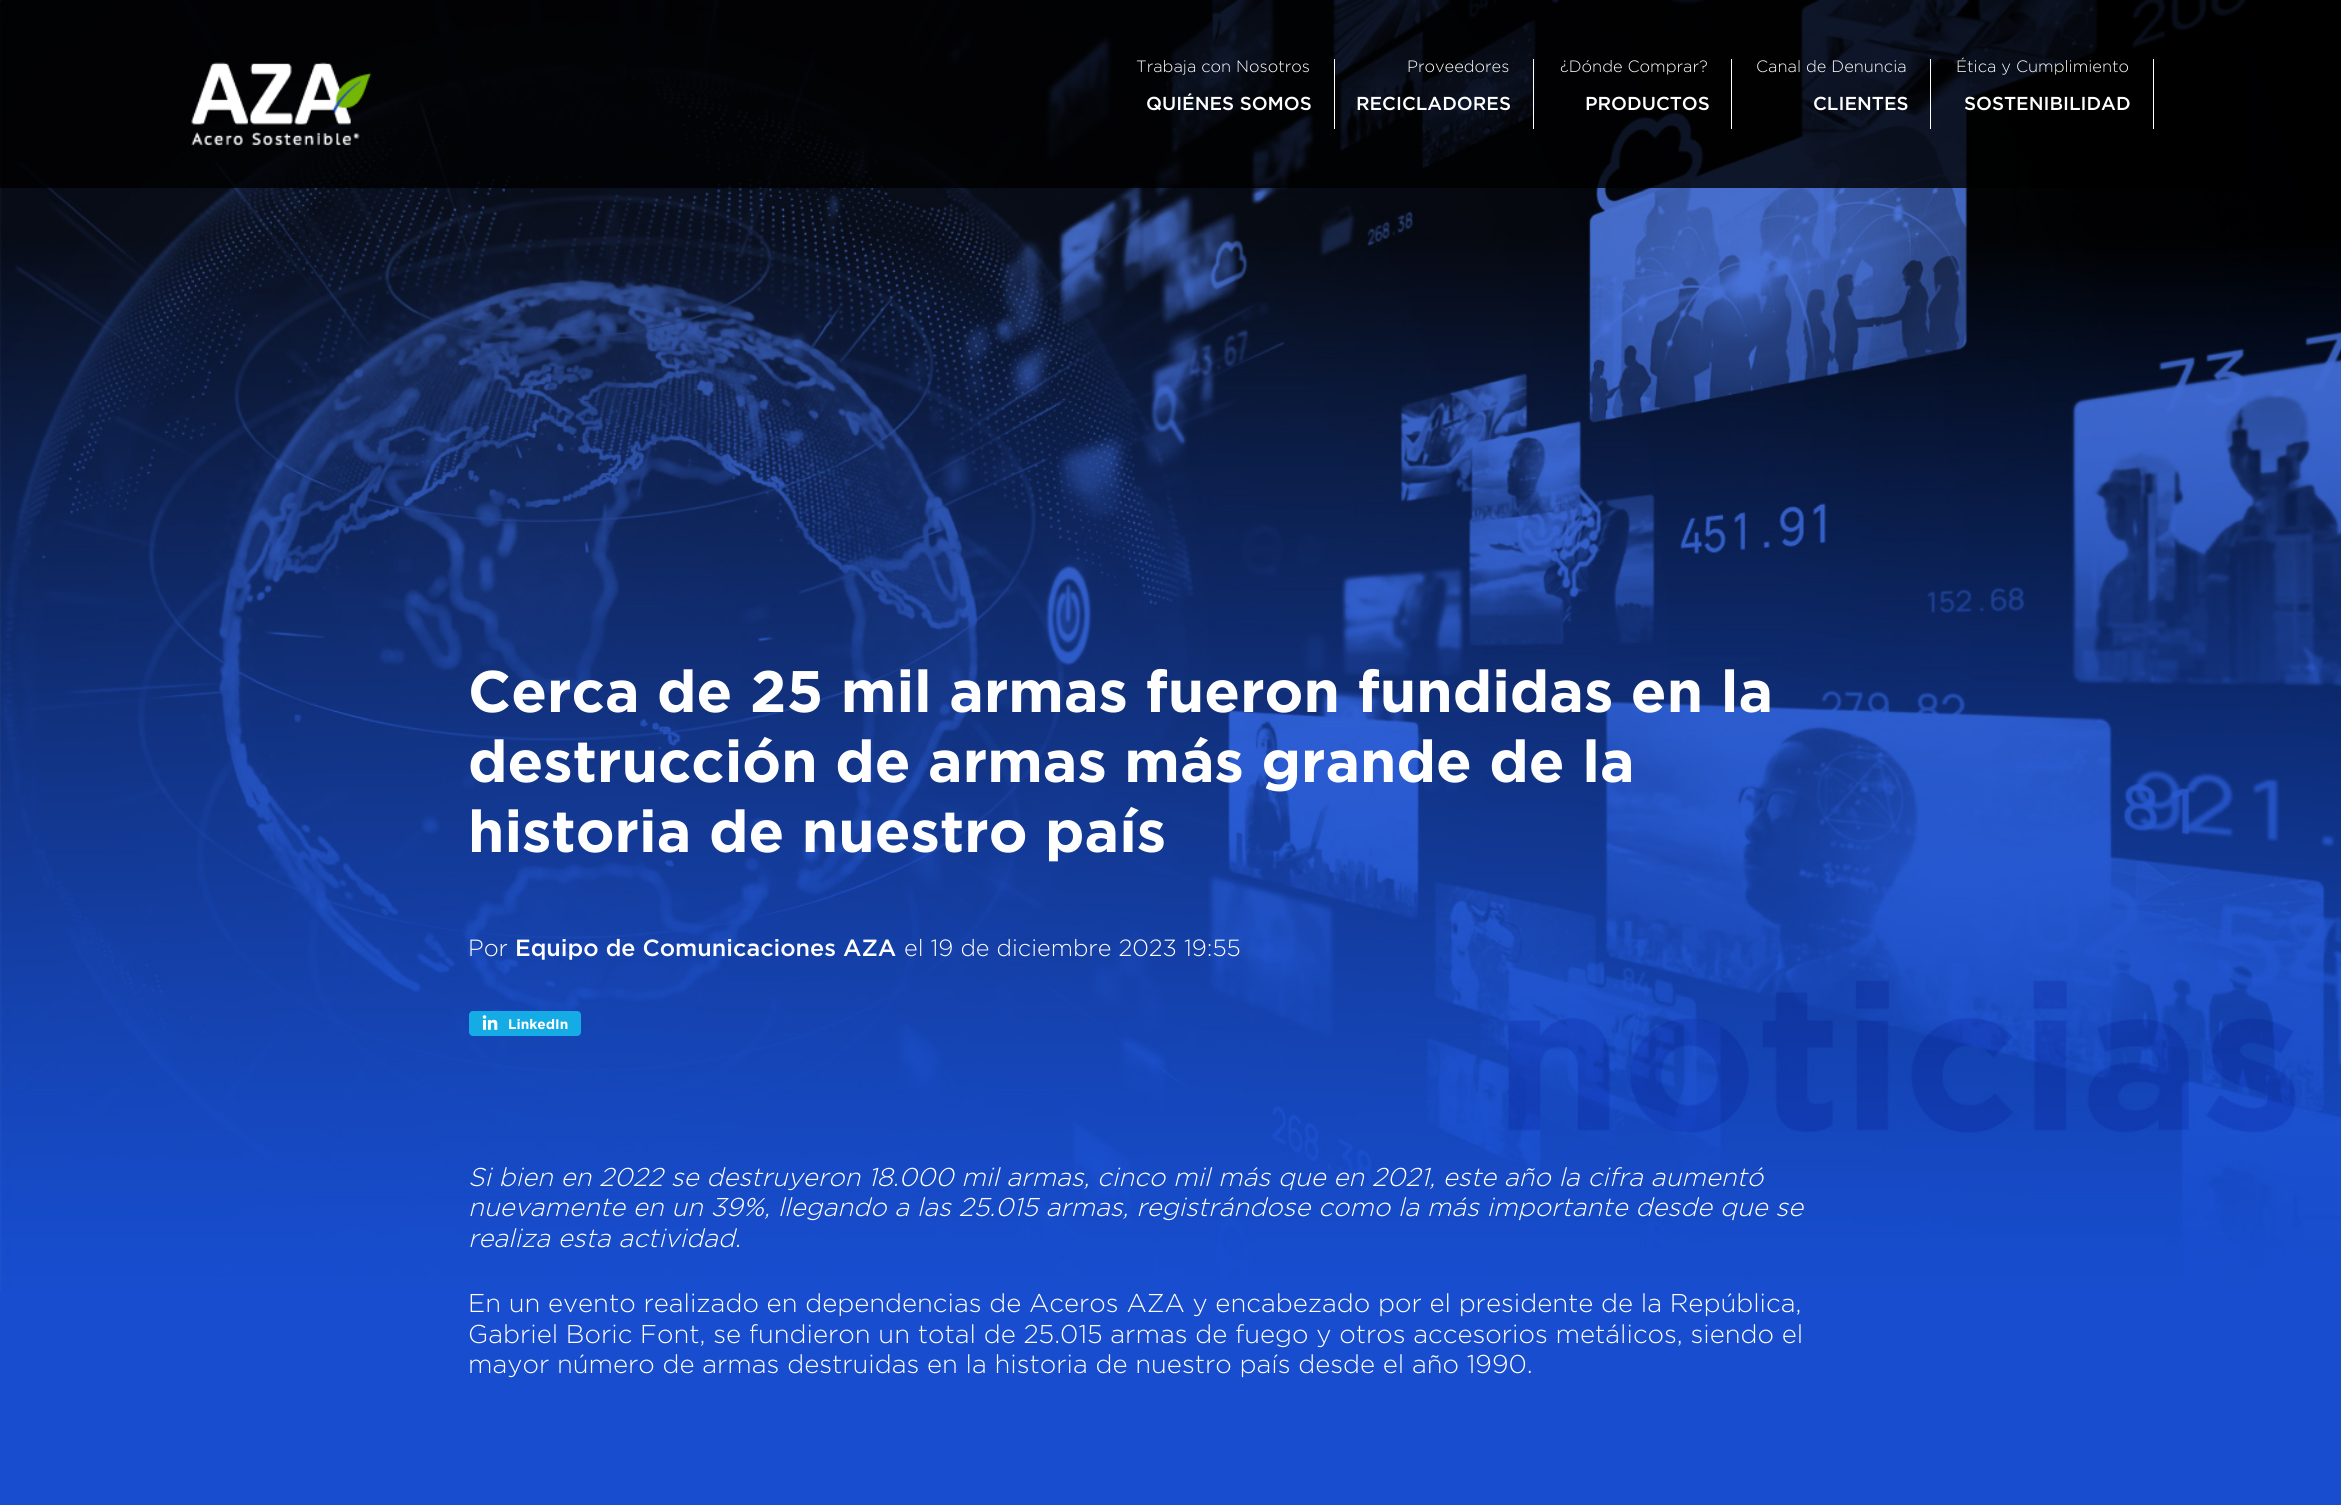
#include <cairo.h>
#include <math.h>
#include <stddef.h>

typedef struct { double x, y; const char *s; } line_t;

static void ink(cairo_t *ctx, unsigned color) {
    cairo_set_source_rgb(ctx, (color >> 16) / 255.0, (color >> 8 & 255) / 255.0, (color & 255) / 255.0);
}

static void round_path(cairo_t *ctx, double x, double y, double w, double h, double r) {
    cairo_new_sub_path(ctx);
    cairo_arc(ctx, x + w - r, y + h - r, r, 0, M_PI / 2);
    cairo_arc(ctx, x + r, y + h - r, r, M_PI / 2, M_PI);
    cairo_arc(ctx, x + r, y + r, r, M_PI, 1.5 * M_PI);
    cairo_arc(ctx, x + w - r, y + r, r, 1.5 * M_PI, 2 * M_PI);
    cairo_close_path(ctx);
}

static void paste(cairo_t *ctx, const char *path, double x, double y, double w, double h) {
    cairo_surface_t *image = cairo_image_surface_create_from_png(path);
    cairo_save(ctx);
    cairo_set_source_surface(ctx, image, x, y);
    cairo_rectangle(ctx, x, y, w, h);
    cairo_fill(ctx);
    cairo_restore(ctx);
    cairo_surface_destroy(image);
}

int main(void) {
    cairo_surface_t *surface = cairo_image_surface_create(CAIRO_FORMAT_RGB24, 2341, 1505);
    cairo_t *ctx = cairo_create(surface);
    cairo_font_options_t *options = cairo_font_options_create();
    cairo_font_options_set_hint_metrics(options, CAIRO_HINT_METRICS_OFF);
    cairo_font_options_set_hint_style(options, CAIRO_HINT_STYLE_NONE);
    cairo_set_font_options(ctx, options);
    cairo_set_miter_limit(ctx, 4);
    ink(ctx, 0x174DCE);
    cairo_paint(ctx);
    paste(ctx, "media/2.png", 0, 0, 2341, 1291);
    cairo_set_source_rgba(ctx, 0, 0, 0, 0.8);
    cairo_rectangle(ctx, 0, 0, 2247, 188);
    cairo_fill(ctx);
    paste(ctx, "media/1.png", 191, 62, 181, 84);
    ink(ctx, 0xFFFFFF);
    cairo_rectangle(ctx, 1334, 59, 1, 70);
    cairo_fill(ctx);
    cairo_select_font_face(ctx, "Gotham Light", CAIRO_FONT_SLANT_NORMAL, CAIRO_FONT_WEIGHT_NORMAL);
    cairo_set_font_size(ctx, 16.4);
    cairo_move_to(ctx, 1136, 72);
    cairo_show_text(ctx, "Trabaja con Nosotros");
    cairo_rectangle(ctx, 1533, 59, 1, 70);
    cairo_fill(ctx);
    cairo_move_to(ctx, 1407, 72);
    cairo_show_text(ctx, "Proveedores");
    cairo_rectangle(ctx, 1731, 59, 1, 70);
    cairo_fill(ctx);
    cairo_move_to(ctx, 1560, 72);
    cairo_show_text(ctx, "¿Dónde Comprar?");
    cairo_rectangle(ctx, 1930, 59, 1, 70);
    cairo_fill(ctx);
    cairo_move_to(ctx, 1756, 72);
    cairo_show_text(ctx, "Canal de Denuncia");
    cairo_rectangle(ctx, 2153, 59, 1, 70);
    cairo_fill(ctx);
    cairo_move_to(ctx, 1956, 72);
    cairo_show_text(ctx, "Ética y Cumplimiento");
    cairo_select_font_face(ctx, "Gotham Medium", CAIRO_FONT_SLANT_NORMAL, CAIRO_FONT_WEIGHT_NORMAL);
    cairo_set_font_size(ctx, 18.75);
    {
        static const line_t items[] = {
            {1146, 110, "QUIÉNES SOMOS"},
            {1356, 110, "RECICLADORES"},
            {1585, 110, "PRODUCTOS"},
            {1813, 110, "CLIENTES"},
            {1964, 110, "SOSTENIBILIDAD"},
        };
        for (size_t i = 0; i < sizeof items / sizeof *items; i++) {
            cairo_move_to(ctx, items[i].x, items[i].y);
            cairo_show_text(ctx, items[i].s);
        }
    }
    cairo_select_font_face(ctx, "Gotham", CAIRO_FONT_SLANT_NORMAL, CAIRO_FONT_WEIGHT_BOLD);
    cairo_set_font_size(ctx, 58.5);
    {
        static const line_t items[] = {
            {468, 712, "Cerca de 25 mil armas fueron fundidas en la"},
            {468, 782, "destrucción de armas más grande de la"},
            {468, 852, "historia de nuestro país"},
        };
        for (size_t i = 0; i < sizeof items / sizeof *items; i++) {
            cairo_move_to(ctx, items[i].x, items[i].y);
            cairo_show_text(ctx, items[i].s);
        }
    }
    cairo_select_font_face(ctx, "Gotham Light", CAIRO_FONT_SLANT_NORMAL, CAIRO_FONT_WEIGHT_NORMAL);
    cairo_set_font_size(ctx, 23.4);
    cairo_move_to(ctx, 468, 956);
    cairo_show_text(ctx, "Por");
    cairo_select_font_face(ctx, "Gotham Medium", CAIRO_FONT_SLANT_NORMAL, CAIRO_FONT_WEIGHT_NORMAL);
    cairo_move_to(ctx, 515, 956);
    cairo_show_text(ctx, "Equipo de Comunicaciones AZA");
    cairo_select_font_face(ctx, "Gotham Light", CAIRO_FONT_SLANT_NORMAL, CAIRO_FONT_WEIGHT_NORMAL);
    cairo_move_to(ctx, 904, 956);
    cairo_show_text(ctx, "el 19 de diciembre 2023 19:55");
    ink(ctx, 0x15ACE5);
    round_path(ctx, 469, 1011, 112, 25, 4);
    cairo_fill(ctx);
    paste(ctx, "media/3.png", 482, 1015, 16, 15);
    cairo_select_font_face(ctx, "Gotham", CAIRO_FONT_SLANT_NORMAL, CAIRO_FONT_WEIGHT_BOLD);
    cairo_set_font_size(ctx, 13.75);
    ink(ctx, 0xFFFFFF);
    cairo_move_to(ctx, 508, 1029);
    cairo_show_text(ctx, "LinkedIn");
    cairo_select_font_face(ctx, "Gotham Light", CAIRO_FONT_SLANT_ITALIC, CAIRO_FONT_WEIGHT_NORMAL);
    cairo_set_font_size(ctx, 25.75);
    {
        static const line_t items[] = {
            {468, 1186, "Si bien en 2022 se destruyeron 18.000 mil armas, cinco mil más que en 2021, este año la cifra aumentó"},
            {468, 1216, "nuevamente en un 39%, llegando a las 25.015 armas, registrándose como la más importante desde que se"},
            {468, 1247, "realiza esta actividad."},
        };
        for (size_t i = 0; i < sizeof items / sizeof *items; i++) {
            cairo_move_to(ctx, items[i].x, items[i].y);
            cairo_show_text(ctx, items[i].s);
        }
    }
    cairo_select_font_face(ctx, "Gotham Light", CAIRO_FONT_SLANT_NORMAL, CAIRO_FONT_WEIGHT_NORMAL);
    {
        static const line_t items[] = {
            {468, 1312, "En un evento realizado en dependencias de Aceros AZA y encabezado por el presidente de la República,"},
            {468, 1343, "Gabriel Boric Font, se fundieron un total de 25.015 armas de fuego y otros accesorios metálicos, siendo el"},
            {468, 1373, "mayor número de armas destruidas en la historia de nuestro país desde el año 1990."},
        };
        for (size_t i = 0; i < sizeof items / sizeof *items; i++) {
            cairo_move_to(ctx, items[i].x, items[i].y);
            cairo_show_text(ctx, items[i].s);
        }
    }
    cairo_surface_write_to_png(surface, "image.png");
    cairo_font_options_destroy(options);
    cairo_destroy(ctx);
    cairo_surface_destroy(surface);
    return 0;
}
